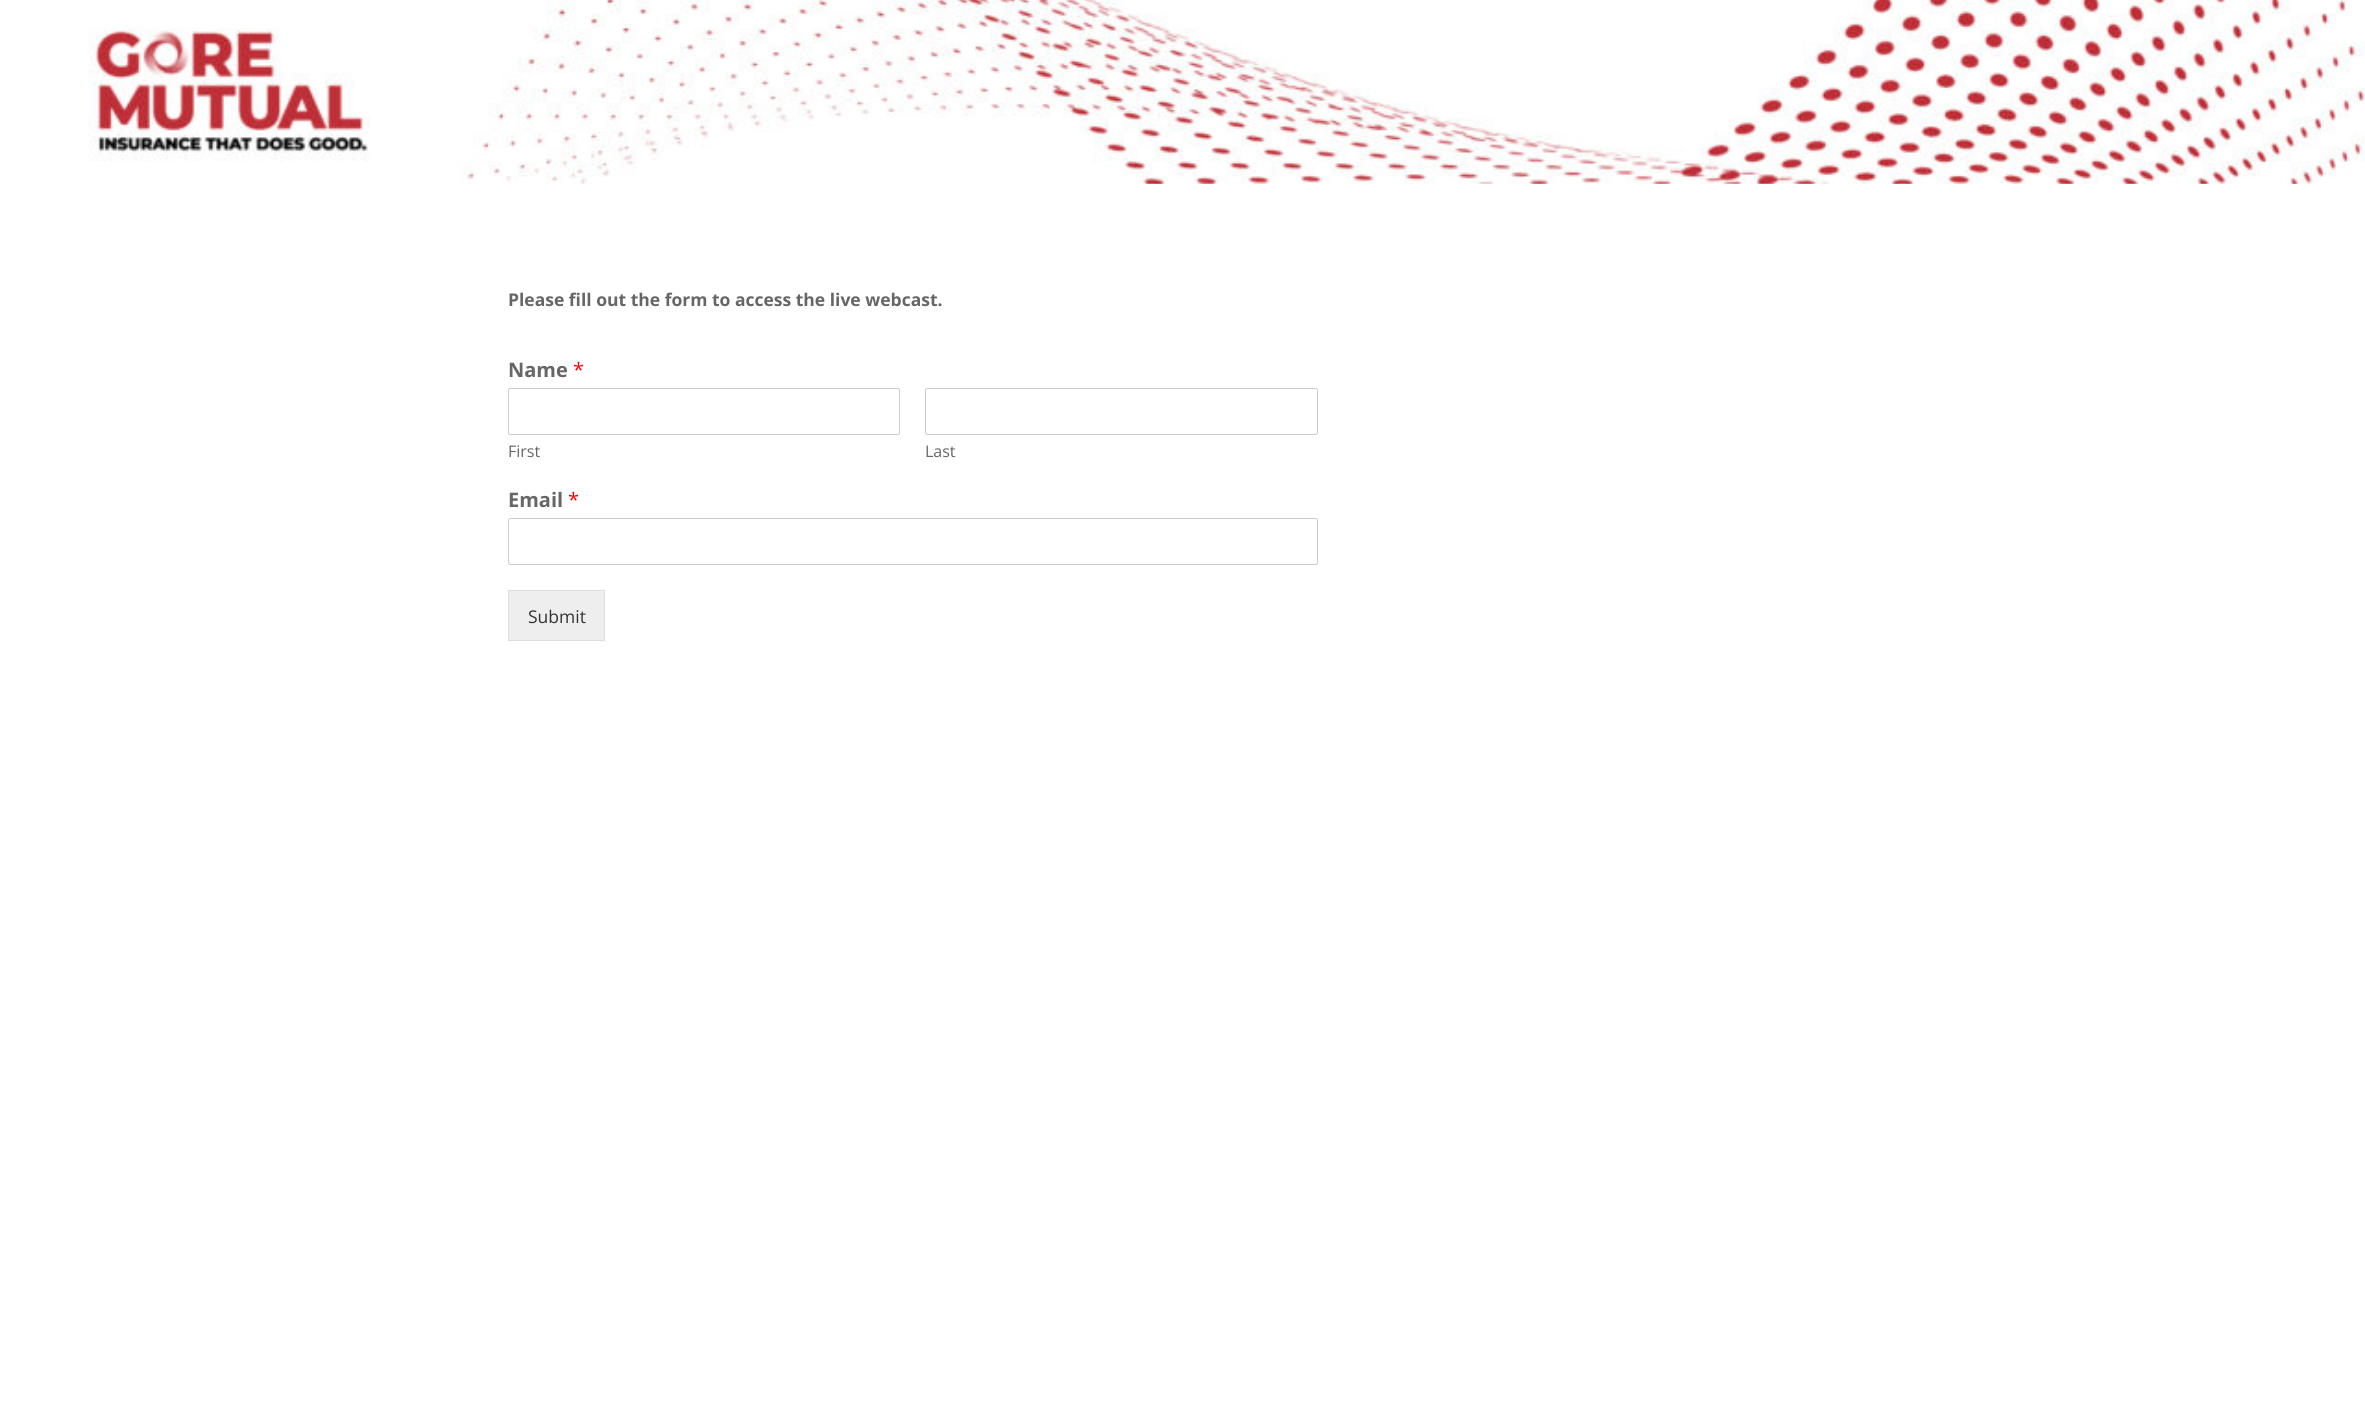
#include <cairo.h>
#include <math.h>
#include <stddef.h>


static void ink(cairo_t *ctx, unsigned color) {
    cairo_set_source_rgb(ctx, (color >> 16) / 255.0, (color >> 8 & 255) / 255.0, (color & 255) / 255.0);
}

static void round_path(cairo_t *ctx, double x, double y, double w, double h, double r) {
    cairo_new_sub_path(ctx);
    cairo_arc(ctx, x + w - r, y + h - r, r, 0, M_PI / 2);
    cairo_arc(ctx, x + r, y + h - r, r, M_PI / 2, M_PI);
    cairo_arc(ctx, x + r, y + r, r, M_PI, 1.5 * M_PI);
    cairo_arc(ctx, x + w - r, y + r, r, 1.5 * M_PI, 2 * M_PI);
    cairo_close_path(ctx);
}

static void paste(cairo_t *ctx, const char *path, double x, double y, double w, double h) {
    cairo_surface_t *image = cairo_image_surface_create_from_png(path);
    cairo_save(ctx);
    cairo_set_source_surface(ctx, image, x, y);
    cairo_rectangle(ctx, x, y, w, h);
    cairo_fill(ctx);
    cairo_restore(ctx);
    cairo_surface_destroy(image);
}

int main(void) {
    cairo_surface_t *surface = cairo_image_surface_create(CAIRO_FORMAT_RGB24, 2365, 1419);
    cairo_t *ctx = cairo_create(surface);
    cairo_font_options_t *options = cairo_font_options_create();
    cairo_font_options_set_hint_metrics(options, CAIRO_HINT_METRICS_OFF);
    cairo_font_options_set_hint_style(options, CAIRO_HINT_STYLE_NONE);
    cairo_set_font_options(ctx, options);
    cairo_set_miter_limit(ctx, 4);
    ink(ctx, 0xFFFFFF);
    cairo_paint(ctx);
    paste(ctx, "media/1.png", 88, 0, 2277, 184);
    cairo_select_font_face(ctx, "Open Sans", CAIRO_FONT_SLANT_NORMAL, CAIRO_FONT_WEIGHT_BOLD);
    cairo_set_font_size(ctx, 17.5);
    ink(ctx, 0x666666);
    cairo_move_to(ctx, 508, 306);
    cairo_show_text(ctx, "Please fill out the form to access the live webcast.");
    cairo_set_font_size(ctx, 20);
    cairo_move_to(ctx, 508, 377);
    cairo_show_text(ctx, "Name");
    cairo_select_font_face(ctx, "Open Sans", CAIRO_FONT_SLANT_NORMAL, CAIRO_FONT_WEIGHT_NORMAL);
    ink(ctx, 0xFF0000);
    cairo_move_to(ctx, 573, 377);
    cairo_show_text(ctx, "*");
    round_path(ctx, 508.5, 388.5, 391, 46, 2);
    ink(ctx, 0xCCCCCC);
    cairo_set_line_width(ctx, 1);
    cairo_stroke(ctx);
    cairo_set_font_size(ctx, 16);
    ink(ctx, 0x666666);
    cairo_move_to(ctx, 508, 457);
    cairo_show_text(ctx, "First");
    round_path(ctx, 925.5, 388.5, 392, 46, 2);
    ink(ctx, 0xCCCCCC);
    cairo_stroke(ctx);
    ink(ctx, 0x666666);
    cairo_move_to(ctx, 925, 457);
    cairo_show_text(ctx, "Last");
    cairo_select_font_face(ctx, "Open Sans", CAIRO_FONT_SLANT_NORMAL, CAIRO_FONT_WEIGHT_BOLD);
    cairo_set_font_size(ctx, 20);
    cairo_move_to(ctx, 508, 507);
    cairo_show_text(ctx, "Email");
    cairo_select_font_face(ctx, "Open Sans", CAIRO_FONT_SLANT_NORMAL, CAIRO_FONT_WEIGHT_NORMAL);
    ink(ctx, 0xFF0000);
    cairo_move_to(ctx, 568, 507);
    cairo_show_text(ctx, "*");
    round_path(ctx, 508.5, 518.5, 809, 46, 2);
    ink(ctx, 0xCCCCCC);
    cairo_stroke(ctx);
    ink(ctx, 0xEEEEEE);
    cairo_rectangle(ctx, 508.5, 590.5, 96, 50);
    cairo_fill_preserve(ctx);
    ink(ctx, 0xDDDDDD);
    cairo_stroke(ctx);
    cairo_set_font_size(ctx, 17.5);
    ink(ctx, 0x333333);
    cairo_move_to(ctx, 528, 623);
    cairo_show_text(ctx, "Submit");
    cairo_surface_write_to_png(surface, "image.png");
    cairo_font_options_destroy(options);
    cairo_destroy(ctx);
    cairo_surface_destroy(surface);
    return 0;
}
